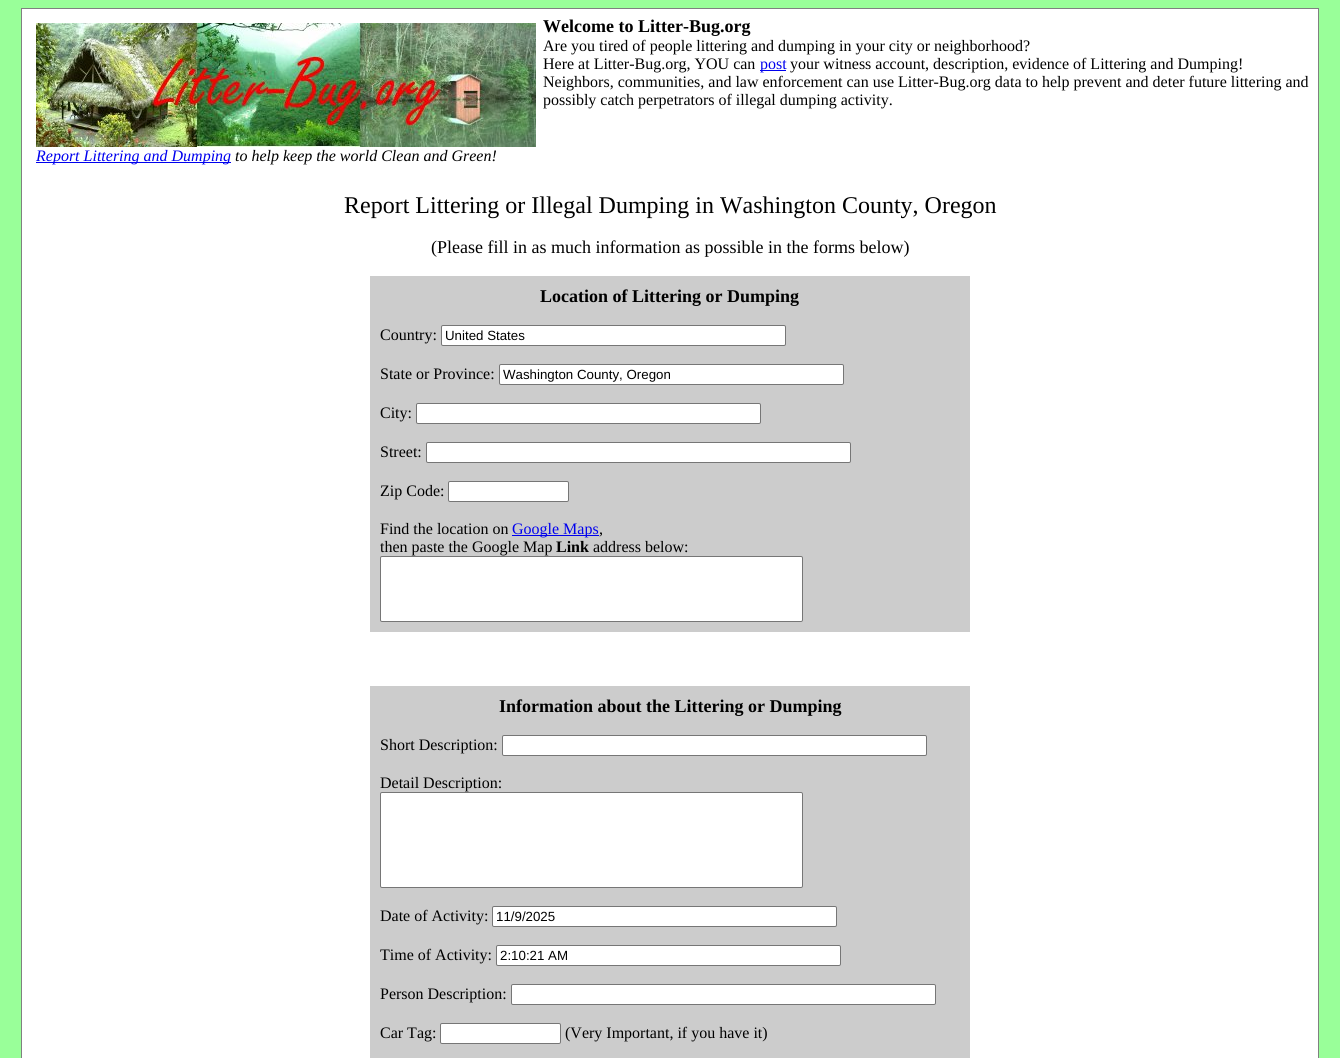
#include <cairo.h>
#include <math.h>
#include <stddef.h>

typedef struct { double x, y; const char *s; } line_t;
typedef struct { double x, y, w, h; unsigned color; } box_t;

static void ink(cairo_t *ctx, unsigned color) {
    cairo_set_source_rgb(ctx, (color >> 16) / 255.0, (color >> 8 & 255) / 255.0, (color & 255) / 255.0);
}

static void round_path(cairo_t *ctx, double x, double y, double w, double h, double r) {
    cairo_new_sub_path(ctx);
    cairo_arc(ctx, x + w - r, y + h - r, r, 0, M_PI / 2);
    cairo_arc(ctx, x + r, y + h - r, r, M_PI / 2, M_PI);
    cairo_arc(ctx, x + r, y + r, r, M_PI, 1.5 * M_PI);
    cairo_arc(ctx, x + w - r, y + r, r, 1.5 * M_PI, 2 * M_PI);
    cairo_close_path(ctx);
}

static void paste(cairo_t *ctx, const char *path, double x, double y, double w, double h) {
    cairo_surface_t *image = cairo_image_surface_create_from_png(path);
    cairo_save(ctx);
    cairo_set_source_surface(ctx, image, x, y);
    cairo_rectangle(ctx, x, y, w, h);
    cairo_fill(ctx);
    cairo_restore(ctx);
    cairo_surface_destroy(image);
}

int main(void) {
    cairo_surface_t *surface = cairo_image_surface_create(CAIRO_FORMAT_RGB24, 1340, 1058);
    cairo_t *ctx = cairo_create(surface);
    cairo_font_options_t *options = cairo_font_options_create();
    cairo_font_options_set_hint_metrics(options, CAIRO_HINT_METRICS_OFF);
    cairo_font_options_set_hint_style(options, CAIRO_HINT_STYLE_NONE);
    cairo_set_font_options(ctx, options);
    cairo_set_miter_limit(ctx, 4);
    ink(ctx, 0x99FF99);
    cairo_paint(ctx);
    {
        static const box_t items[] = {
            {22, 9, 1296, 1049, 0xFFFFFF},
            {21, 8, 1298, 1, 0x808080},
            {1318, 8, 1, 1050, 0x808080},
            {21, 8, 1, 1050, 0x808080},
        };
        for (size_t i = 0; i < sizeof items / sizeof *items; i++) {
            ink(ctx, items[i].color);
            cairo_rectangle(ctx, items[i].x, items[i].y, items[i].w, items[i].h);
            cairo_fill(ctx);
        }
    }
    cairo_select_font_face(ctx, "Liberation Serif", CAIRO_FONT_SLANT_NORMAL, CAIRO_FONT_WEIGHT_BOLD);
    cairo_set_font_size(ctx, 18);
    ink(ctx, 0x000000);
    cairo_move_to(ctx, 543, 32);
    cairo_show_text(ctx, "Welcome to Litter-Bug.org");
    cairo_select_font_face(ctx, "Liberation Serif", CAIRO_FONT_SLANT_NORMAL, CAIRO_FONT_WEIGHT_NORMAL);
    cairo_set_font_size(ctx, 16);
    cairo_move_to(ctx, 543, 51);
    cairo_show_text(ctx, "Are you tired of people littering and dumping in your city or neighborhood?");
    cairo_move_to(ctx, 543, 69);
    cairo_show_text(ctx, "Here at Litter-Bug.org, YOU can");
    ink(ctx, 0x0000EE);
    cairo_rectangle(ctx, 760, 70, 26, 1);
    cairo_fill(ctx);
    cairo_move_to(ctx, 760, 69);
    cairo_show_text(ctx, "post");
    ink(ctx, 0x000000);
    {
        static const line_t items[] = {
            {790, 69, "your witness account, description, evidence of Littering and Dumping!"},
            {543, 87, "Neighbors, communities, and law enforcement can use Litter-Bug.org data to help prevent and deter future littering and"},
            {543, 105, "possibly catch perpetrators of illegal dumping activity."},
        };
        for (size_t i = 0; i < sizeof items / sizeof *items; i++) {
            cairo_move_to(ctx, items[i].x, items[i].y);
            cairo_show_text(ctx, items[i].s);
        }
    }
    paste(ctx, "media/1.png", 36, 23, 500, 124);
    ink(ctx, 0x0000EE);
    cairo_rectangle(ctx, 36, 162, 195, 1);
    cairo_fill(ctx);
    cairo_select_font_face(ctx, "Liberation Serif", CAIRO_FONT_SLANT_ITALIC, CAIRO_FONT_WEIGHT_NORMAL);
    cairo_move_to(ctx, 36, 161);
    cairo_show_text(ctx, "Report Littering and Dumping");
    ink(ctx, 0x000000);
    cairo_move_to(ctx, 235, 161);
    cairo_show_text(ctx, "to help keep the world Clean and Green!");
    cairo_select_font_face(ctx, "Liberation Serif", CAIRO_FONT_SLANT_NORMAL, CAIRO_FONT_WEIGHT_NORMAL);
    cairo_set_font_size(ctx, 24);
    cairo_move_to(ctx, 344, 213);
    cairo_show_text(ctx, "Report Littering or Illegal Dumping in Washington County, Oregon");
    cairo_set_font_size(ctx, 18);
    cairo_move_to(ctx, 431, 253);
    cairo_show_text(ctx, "(Please fill in as much information as possible in the forms below)");
    ink(ctx, 0xCCCCCC);
    cairo_rectangle(ctx, 370, 276, 600, 356);
    cairo_fill(ctx);
    cairo_select_font_face(ctx, "Liberation Serif", CAIRO_FONT_SLANT_NORMAL, CAIRO_FONT_WEIGHT_BOLD);
    ink(ctx, 0x000000);
    cairo_move_to(ctx, 540, 302);
    cairo_show_text(ctx, "Location of Littering or Dumping");
    cairo_select_font_face(ctx, "Liberation Serif", CAIRO_FONT_SLANT_NORMAL, CAIRO_FONT_WEIGHT_NORMAL);
    cairo_set_font_size(ctx, 16);
    cairo_move_to(ctx, 380, 340);
    cairo_show_text(ctx, "Country:");
    ink(ctx, 0xFFFFFF);
    round_path(ctx, 441.5, 325.5, 344, 20, 1.5);
    cairo_fill_preserve(ctx);
    ink(ctx, 0x767676);
    cairo_set_line_width(ctx, 1);
    cairo_stroke(ctx);
    cairo_select_font_face(ctx, "Liberation Sans", CAIRO_FONT_SLANT_NORMAL, CAIRO_FONT_WEIGHT_NORMAL);
    cairo_set_font_size(ctx, 13.3);
    ink(ctx, 0x000000);
    cairo_move_to(ctx, 445, 340);
    cairo_show_text(ctx, "United States");
    cairo_select_font_face(ctx, "Liberation Serif", CAIRO_FONT_SLANT_NORMAL, CAIRO_FONT_WEIGHT_NORMAL);
    cairo_set_font_size(ctx, 16);
    cairo_move_to(ctx, 380, 379);
    cairo_show_text(ctx, "State or Province:");
    ink(ctx, 0xFFFFFF);
    round_path(ctx, 499.5, 364.5, 344, 20, 1.5);
    cairo_fill_preserve(ctx);
    ink(ctx, 0x767676);
    cairo_stroke(ctx);
    cairo_select_font_face(ctx, "Liberation Sans", CAIRO_FONT_SLANT_NORMAL, CAIRO_FONT_WEIGHT_NORMAL);
    cairo_set_font_size(ctx, 13.3);
    ink(ctx, 0x000000);
    cairo_move_to(ctx, 503, 379);
    cairo_show_text(ctx, "Washington County, Oregon");
    cairo_select_font_face(ctx, "Liberation Serif", CAIRO_FONT_SLANT_NORMAL, CAIRO_FONT_WEIGHT_NORMAL);
    cairo_set_font_size(ctx, 16);
    cairo_move_to(ctx, 380, 418);
    cairo_show_text(ctx, "City:");
    ink(ctx, 0xFFFFFF);
    round_path(ctx, 416.5, 403.5, 344, 20, 1.5);
    cairo_fill_preserve(ctx);
    ink(ctx, 0x767676);
    cairo_stroke(ctx);
    ink(ctx, 0x000000);
    cairo_move_to(ctx, 380, 457);
    cairo_show_text(ctx, "Street:");
    ink(ctx, 0xFFFFFF);
    round_path(ctx, 426.5, 442.5, 424, 20, 1.5);
    cairo_fill_preserve(ctx);
    ink(ctx, 0x767676);
    cairo_stroke(ctx);
    ink(ctx, 0x000000);
    cairo_move_to(ctx, 380, 496);
    cairo_show_text(ctx, "Zip Code:");
    ink(ctx, 0xFFFFFF);
    round_path(ctx, 448.5, 481.5, 120, 20, 1.5);
    cairo_fill_preserve(ctx);
    ink(ctx, 0x767676);
    cairo_stroke(ctx);
    ink(ctx, 0x000000);
    cairo_move_to(ctx, 380, 534);
    cairo_show_text(ctx, "Find the location on");
    ink(ctx, 0x0000EE);
    cairo_rectangle(ctx, 512, 535, 87, 1);
    cairo_fill(ctx);
    cairo_move_to(ctx, 512, 534);
    cairo_show_text(ctx, "Google Maps");
    ink(ctx, 0x000000);
    cairo_move_to(ctx, 599, 534);
    cairo_show_text(ctx, ",");
    cairo_move_to(ctx, 380, 552);
    cairo_show_text(ctx, "then paste the Google Map");
    cairo_select_font_face(ctx, "Liberation Serif", CAIRO_FONT_SLANT_NORMAL, CAIRO_FONT_WEIGHT_BOLD);
    cairo_move_to(ctx, 556, 552);
    cairo_show_text(ctx, "Link");
    cairo_select_font_face(ctx, "Liberation Serif", CAIRO_FONT_SLANT_NORMAL, CAIRO_FONT_WEIGHT_NORMAL);
    cairo_move_to(ctx, 593, 552);
    cairo_show_text(ctx, "address below:");
    ink(ctx, 0xFFFFFF);
    round_path(ctx, 380.5, 556.5, 422, 65, 1.5);
    cairo_fill_preserve(ctx);
    ink(ctx, 0x767676);
    cairo_stroke(ctx);
    ink(ctx, 0xCCCCCC);
    cairo_rectangle(ctx, 370, 686, 600, 372);
    cairo_fill(ctx);
    cairo_select_font_face(ctx, "Liberation Serif", CAIRO_FONT_SLANT_NORMAL, CAIRO_FONT_WEIGHT_BOLD);
    cairo_set_font_size(ctx, 18);
    ink(ctx, 0x000000);
    cairo_move_to(ctx, 499, 712);
    cairo_show_text(ctx, "Information about the Littering or Dumping");
    cairo_select_font_face(ctx, "Liberation Serif", CAIRO_FONT_SLANT_NORMAL, CAIRO_FONT_WEIGHT_NORMAL);
    cairo_set_font_size(ctx, 16);
    cairo_move_to(ctx, 380, 750);
    cairo_show_text(ctx, "Short Description:");
    ink(ctx, 0xFFFFFF);
    round_path(ctx, 502.5, 735.5, 424, 20, 1.5);
    cairo_fill_preserve(ctx);
    ink(ctx, 0x767676);
    cairo_stroke(ctx);
    ink(ctx, 0x000000);
    cairo_move_to(ctx, 380, 788);
    cairo_show_text(ctx, "Detail Description:");
    ink(ctx, 0xFFFFFF);
    round_path(ctx, 380.5, 792.5, 422, 95, 1.5);
    cairo_fill_preserve(ctx);
    ink(ctx, 0x767676);
    cairo_stroke(ctx);
    ink(ctx, 0x000000);
    cairo_move_to(ctx, 380, 921);
    cairo_show_text(ctx, "Date of Activity:");
    ink(ctx, 0xFFFFFF);
    round_path(ctx, 492.5, 906.5, 344, 20, 1.5);
    cairo_fill_preserve(ctx);
    ink(ctx, 0x767676);
    cairo_stroke(ctx);
    cairo_select_font_face(ctx, "Liberation Sans", CAIRO_FONT_SLANT_NORMAL, CAIRO_FONT_WEIGHT_NORMAL);
    cairo_set_font_size(ctx, 13.3);
    ink(ctx, 0x000000);
    cairo_move_to(ctx, 496, 921);
    cairo_show_text(ctx, "11/9/2025");
    cairo_select_font_face(ctx, "Liberation Serif", CAIRO_FONT_SLANT_NORMAL, CAIRO_FONT_WEIGHT_NORMAL);
    cairo_set_font_size(ctx, 16);
    cairo_move_to(ctx, 380, 960);
    cairo_show_text(ctx, "Time of Activity:");
    ink(ctx, 0xFFFFFF);
    round_path(ctx, 496.5, 945.5, 344, 20, 1.5);
    cairo_fill_preserve(ctx);
    ink(ctx, 0x767676);
    cairo_stroke(ctx);
    cairo_select_font_face(ctx, "Liberation Sans", CAIRO_FONT_SLANT_NORMAL, CAIRO_FONT_WEIGHT_NORMAL);
    cairo_set_font_size(ctx, 13.3);
    ink(ctx, 0x000000);
    cairo_move_to(ctx, 500, 960);
    cairo_show_text(ctx, "2:10:21 AM");
    cairo_select_font_face(ctx, "Liberation Serif", CAIRO_FONT_SLANT_NORMAL, CAIRO_FONT_WEIGHT_NORMAL);
    cairo_set_font_size(ctx, 16);
    cairo_move_to(ctx, 380, 999);
    cairo_show_text(ctx, "Person Description:");
    ink(ctx, 0xFFFFFF);
    round_path(ctx, 511.5, 984.5, 424, 20, 1.5);
    cairo_fill_preserve(ctx);
    ink(ctx, 0x767676);
    cairo_stroke(ctx);
    ink(ctx, 0x000000);
    cairo_move_to(ctx, 380, 1038);
    cairo_show_text(ctx, "Car Tag:");
    ink(ctx, 0xFFFFFF);
    round_path(ctx, 440.5, 1023.5, 120, 20, 1.5);
    cairo_fill_preserve(ctx);
    ink(ctx, 0x767676);
    cairo_stroke(ctx);
    ink(ctx, 0x000000);
    cairo_move_to(ctx, 565, 1038);
    cairo_show_text(ctx, "(Very Important, if you have it)");
    cairo_surface_write_to_png(surface, "image.png");
    cairo_font_options_destroy(options);
    cairo_destroy(ctx);
    cairo_surface_destroy(surface);
    return 0;
}
